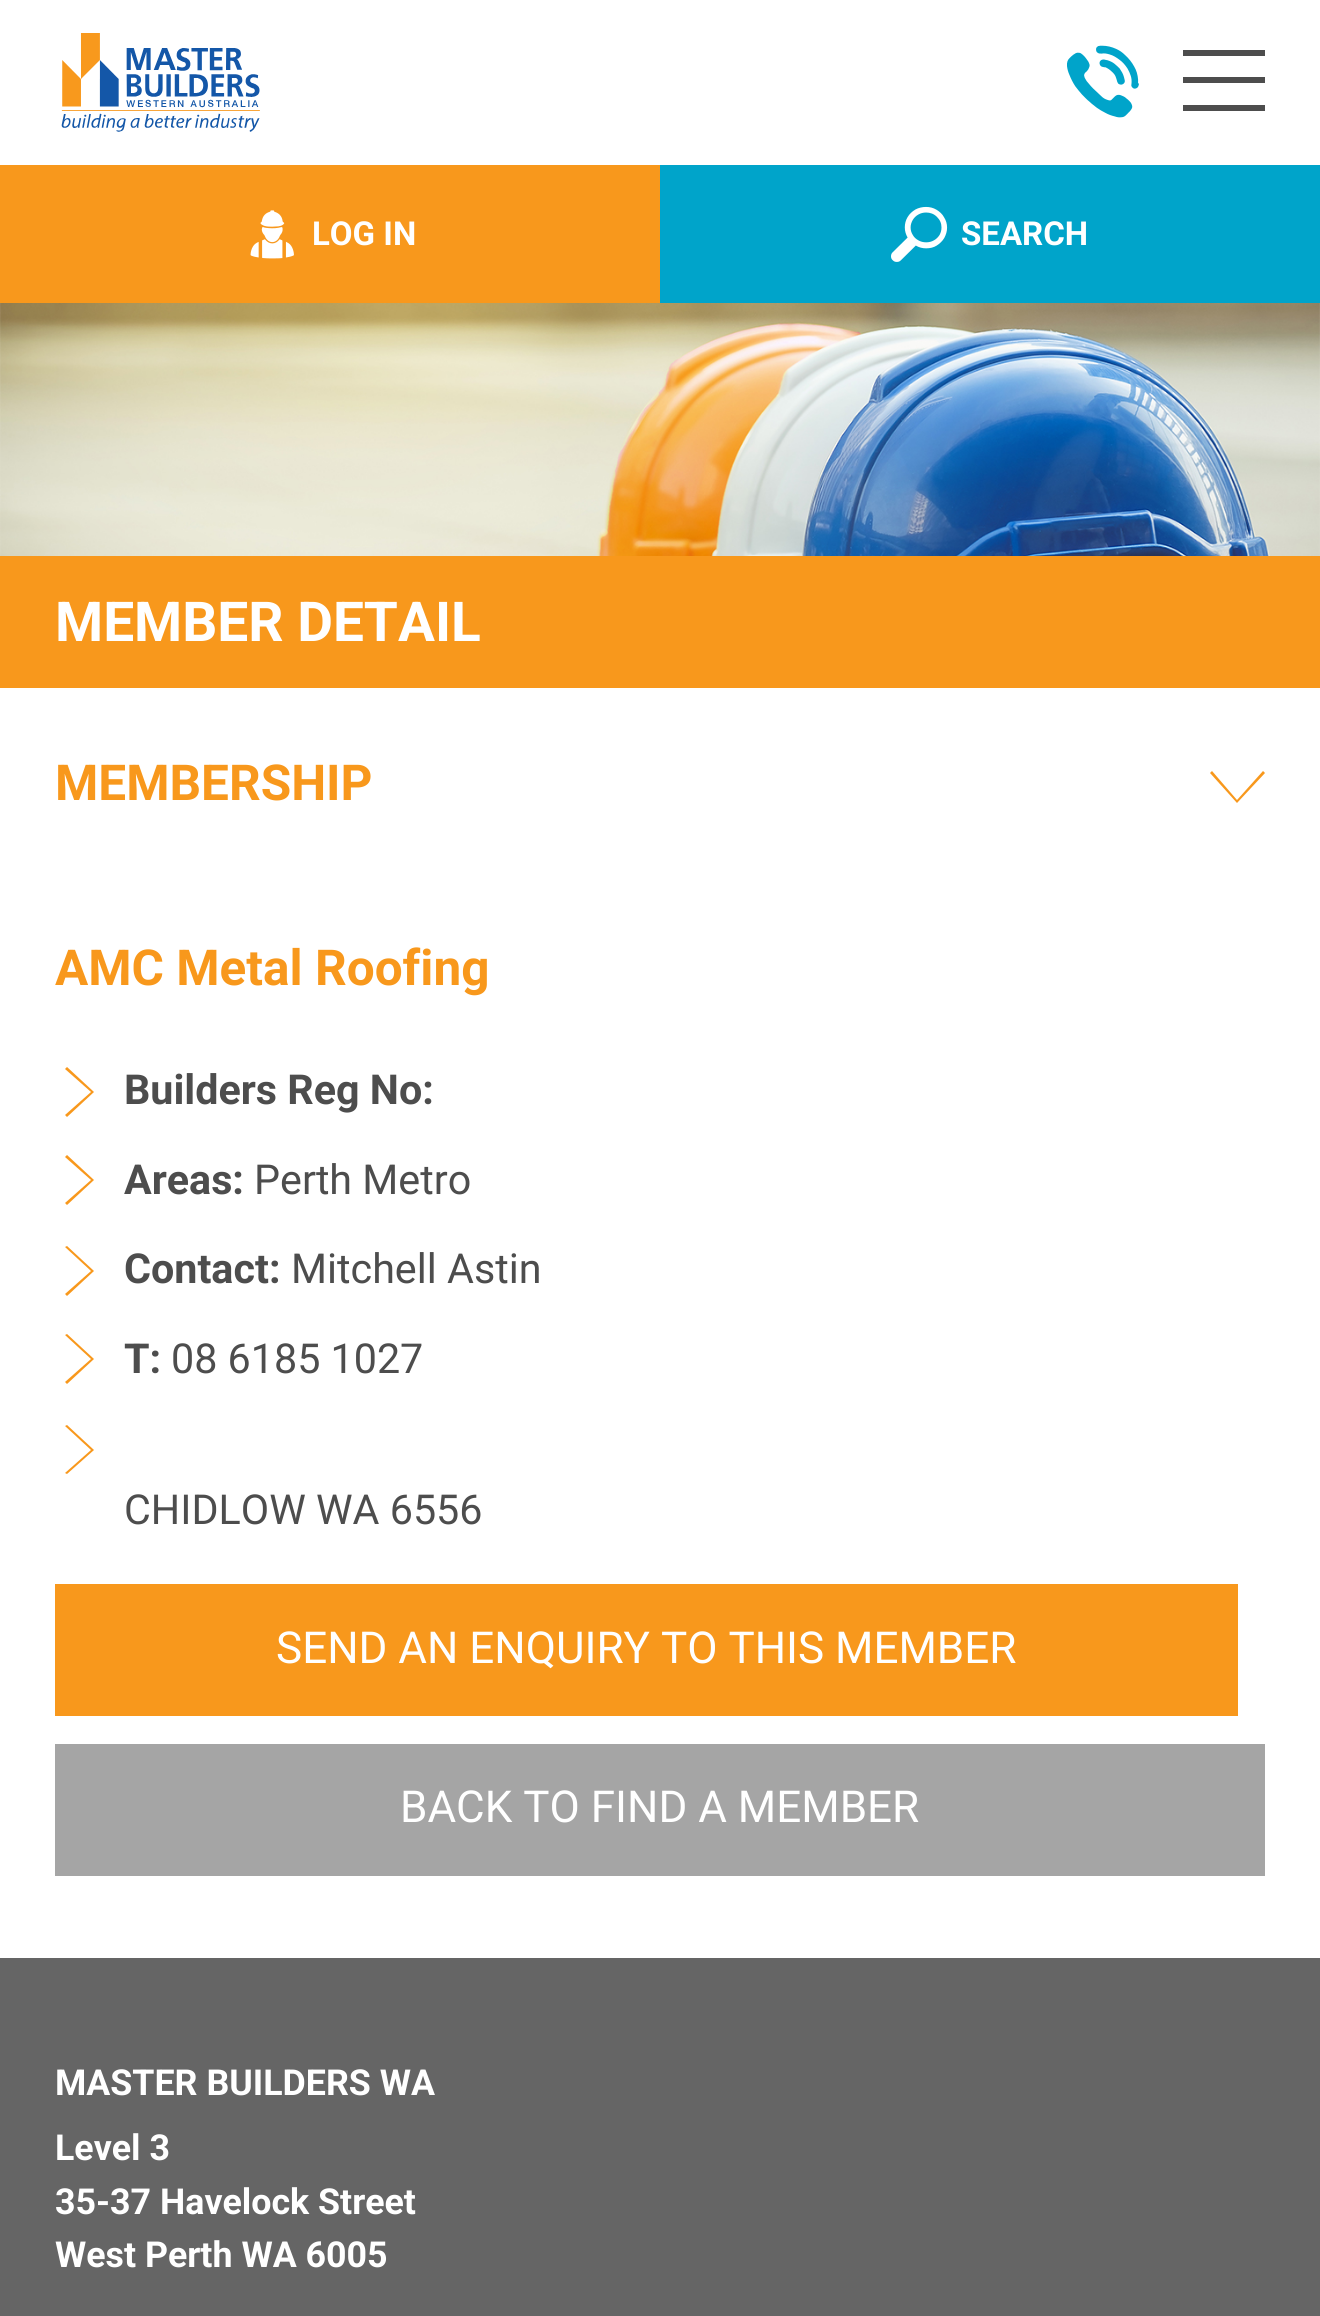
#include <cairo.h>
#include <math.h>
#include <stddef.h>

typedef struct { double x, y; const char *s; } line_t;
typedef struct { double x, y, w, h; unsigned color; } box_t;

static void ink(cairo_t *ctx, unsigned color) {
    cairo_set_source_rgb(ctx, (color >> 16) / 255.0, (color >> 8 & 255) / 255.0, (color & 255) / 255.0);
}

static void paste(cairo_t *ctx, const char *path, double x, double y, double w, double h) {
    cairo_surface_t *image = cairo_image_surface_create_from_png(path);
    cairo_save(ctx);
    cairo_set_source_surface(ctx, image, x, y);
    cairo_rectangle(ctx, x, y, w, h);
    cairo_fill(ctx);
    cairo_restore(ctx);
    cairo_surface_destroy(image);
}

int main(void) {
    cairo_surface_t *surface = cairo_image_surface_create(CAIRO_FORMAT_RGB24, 1320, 2316);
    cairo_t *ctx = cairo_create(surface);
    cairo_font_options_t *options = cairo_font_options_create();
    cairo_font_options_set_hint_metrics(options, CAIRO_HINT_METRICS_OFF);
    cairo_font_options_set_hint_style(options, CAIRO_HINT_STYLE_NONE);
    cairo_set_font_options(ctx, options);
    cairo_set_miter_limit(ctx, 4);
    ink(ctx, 0x656565);
    cairo_paint(ctx);
    ink(ctx, 0xFFFFFF);
    cairo_rectangle(ctx, 0, 0, 1320, 165);
    cairo_fill(ctx);
    paste(ctx, "media/1.png", 61, 33, 199, 99);
    paste(ctx, "media/2.png", 1067, 45, 72, 73);
    {
        static const box_t items[] = {
            {1183, 50, 82, 6, 0x4D4D4D},
            {1183, 77, 82, 6, 0x4D4D4D},
            {1183, 105, 82, 6, 0x4D4D4D},
            {0, 165, 660, 138, 0xF8981C},
        };
        for (size_t i = 0; i < sizeof items / sizeof *items; i++) {
            ink(ctx, items[i].color);
            cairo_rectangle(ctx, items[i].x, items[i].y, items[i].w, items[i].h);
            cairo_fill(ctx);
        }
    }
    paste(ctx, "media/3.png", 250, 210, 44, 49);
    cairo_select_font_face(ctx, "Roboto", CAIRO_FONT_SLANT_NORMAL, CAIRO_FONT_WEIGHT_BOLD);
    cairo_set_font_size(ctx, 33);
    ink(ctx, 0xFFFFFF);
    cairo_move_to(ctx, 312, 245);
    cairo_show_text(ctx, "LOG IN");
    ink(ctx, 0x00A4CA);
    cairo_rectangle(ctx, 660, 165, 660, 138);
    cairo_fill(ctx);
    paste(ctx, "media/4.png", 891, 206, 57, 56);
    ink(ctx, 0xFFFFFF);
    cairo_move_to(ctx, 961, 245);
    cairo_show_text(ctx, "SEARCH");
    paste(ctx, "media/5.png", 0, 303, 1320, 253);
    ink(ctx, 0xF8981C);
    cairo_rectangle(ctx, 0, 556, 1320, 132);
    cairo_fill(ctx);
    cairo_set_font_size(ctx, 55);
    ink(ctx, 0xFFFFFF);
    cairo_move_to(ctx, 55, 641);
    cairo_show_text(ctx, "MEMBER DETAIL");
    cairo_rectangle(ctx, 0, 688, 1320, 1270);
    cairo_fill(ctx);
    cairo_set_font_size(ctx, 49.5);
    ink(ctx, 0xF8981C);
    cairo_move_to(ctx, 55, 800);
    cairo_show_text(ctx, "MEMBERSHIP");
    cairo_new_path(ctx);
    cairo_move_to(ctx, 1210, 773);
    cairo_line_to(ctx, 1212, 771);
    cairo_line_to(ctx, 1237, 800);
    cairo_line_to(ctx, 1263, 771);
    cairo_line_to(ctx, 1265, 773);
    cairo_line_to(ctx, 1237, 803);
    cairo_close_path(ctx);
    cairo_fill(ctx);
    cairo_move_to(ctx, 55, 985);
    cairo_show_text(ctx, "AMC Metal Roofing");
    cairo_new_path(ctx);
    cairo_move_to(ctx, 67, 1117);
    cairo_line_to(ctx, 65, 1115);
    cairo_line_to(ctx, 91, 1092);
    cairo_line_to(ctx, 65, 1069);
    cairo_line_to(ctx, 67, 1067);
    cairo_line_to(ctx, 94, 1092);
    cairo_close_path(ctx);
    cairo_fill(ctx);
    cairo_set_font_size(ctx, 41.25);
    ink(ctx, 0x4D4D4D);
    cairo_move_to(ctx, 124, 1104);
    cairo_show_text(ctx, "Builders Reg No:");
    ink(ctx, 0xF8981C);
    cairo_new_path(ctx);
    cairo_move_to(ctx, 67, 1205);
    cairo_line_to(ctx, 65, 1203);
    cairo_line_to(ctx, 91, 1180);
    cairo_line_to(ctx, 65, 1157);
    cairo_line_to(ctx, 67, 1155);
    cairo_line_to(ctx, 94, 1180);
    cairo_close_path(ctx);
    cairo_fill(ctx);
    ink(ctx, 0x4D4D4D);
    cairo_move_to(ctx, 124, 1194);
    cairo_show_text(ctx, "Areas:");
    cairo_select_font_face(ctx, "Roboto", CAIRO_FONT_SLANT_NORMAL, CAIRO_FONT_WEIGHT_NORMAL);
    cairo_move_to(ctx, 254, 1194);
    cairo_show_text(ctx, "Perth Metro");
    ink(ctx, 0xF8981C);
    cairo_new_path(ctx);
    cairo_move_to(ctx, 67, 1296);
    cairo_line_to(ctx, 65, 1294);
    cairo_line_to(ctx, 91, 1271);
    cairo_line_to(ctx, 65, 1247);
    cairo_line_to(ctx, 67, 1246);
    cairo_line_to(ctx, 94, 1271);
    cairo_close_path(ctx);
    cairo_fill(ctx);
    cairo_select_font_face(ctx, "Roboto", CAIRO_FONT_SLANT_NORMAL, CAIRO_FONT_WEIGHT_BOLD);
    ink(ctx, 0x4D4D4D);
    cairo_move_to(ctx, 124, 1283);
    cairo_show_text(ctx, "Contact:");
    cairo_select_font_face(ctx, "Roboto", CAIRO_FONT_SLANT_NORMAL, CAIRO_FONT_WEIGHT_NORMAL);
    cairo_move_to(ctx, 291, 1283);
    cairo_show_text(ctx, "Mitchell Astin");
    ink(ctx, 0xF8981C);
    cairo_new_path(ctx);
    cairo_move_to(ctx, 67, 1384);
    cairo_line_to(ctx, 65, 1382);
    cairo_line_to(ctx, 91, 1359);
    cairo_line_to(ctx, 65, 1335);
    cairo_line_to(ctx, 67, 1334);
    cairo_line_to(ctx, 94, 1359);
    cairo_close_path(ctx);
    cairo_fill(ctx);
    cairo_select_font_face(ctx, "Roboto", CAIRO_FONT_SLANT_NORMAL, CAIRO_FONT_WEIGHT_BOLD);
    ink(ctx, 0x4D4D4D);
    cairo_move_to(ctx, 124, 1373);
    cairo_show_text(ctx, "T:");
    cairo_select_font_face(ctx, "Roboto", CAIRO_FONT_SLANT_NORMAL, CAIRO_FONT_WEIGHT_NORMAL);
    cairo_move_to(ctx, 171, 1373);
    cairo_show_text(ctx, "08 6185 1027");
    ink(ctx, 0xF8981C);
    cairo_new_path(ctx);
    cairo_move_to(ctx, 67, 1474);
    cairo_line_to(ctx, 65, 1473);
    cairo_line_to(ctx, 91, 1450);
    cairo_line_to(ctx, 65, 1426);
    cairo_line_to(ctx, 67, 1425);
    cairo_line_to(ctx, 94, 1450);
    cairo_close_path(ctx);
    cairo_fill(ctx);
    ink(ctx, 0x4D4D4D);
    cairo_move_to(ctx, 124, 1524);
    cairo_show_text(ctx, "CHIDLOW WA 6556");
    ink(ctx, 0xF8981C);
    cairo_rectangle(ctx, 55, 1584, 1183, 132);
    cairo_fill(ctx);
    cairo_set_font_size(ctx, 44);
    ink(ctx, 0xFFFFFF);
    cairo_move_to(ctx, 276, 1663);
    cairo_show_text(ctx, "SEND AN ENQUIRY TO THIS MEMBER");
    ink(ctx, 0xA5A5A5);
    cairo_rectangle(ctx, 55, 1744, 1210, 132);
    cairo_fill(ctx);
    ink(ctx, 0xFFFFFF);
    cairo_move_to(ctx, 400, 1822);
    cairo_show_text(ctx, "BACK TO FIND A MEMBER");
    cairo_select_font_face(ctx, "Roboto", CAIRO_FONT_SLANT_NORMAL, CAIRO_FONT_WEIGHT_BOLD);
    cairo_set_font_size(ctx, 35.75);
    {
        static const line_t items[] = {
            {55, 2095, "MASTER BUILDERS WA"},
            {55, 2160, "Level 3"},
            {55, 2214, "35-37 Havelock Street"},
            {55, 2267, "West Perth WA 6005"},
        };
        for (size_t i = 0; i < sizeof items / sizeof *items; i++) {
            cairo_move_to(ctx, items[i].x, items[i].y);
            cairo_show_text(ctx, items[i].s);
        }
    }
    cairo_surface_write_to_png(surface, "image.png");
    cairo_font_options_destroy(options);
    cairo_destroy(ctx);
    cairo_surface_destroy(surface);
    return 0;
}
